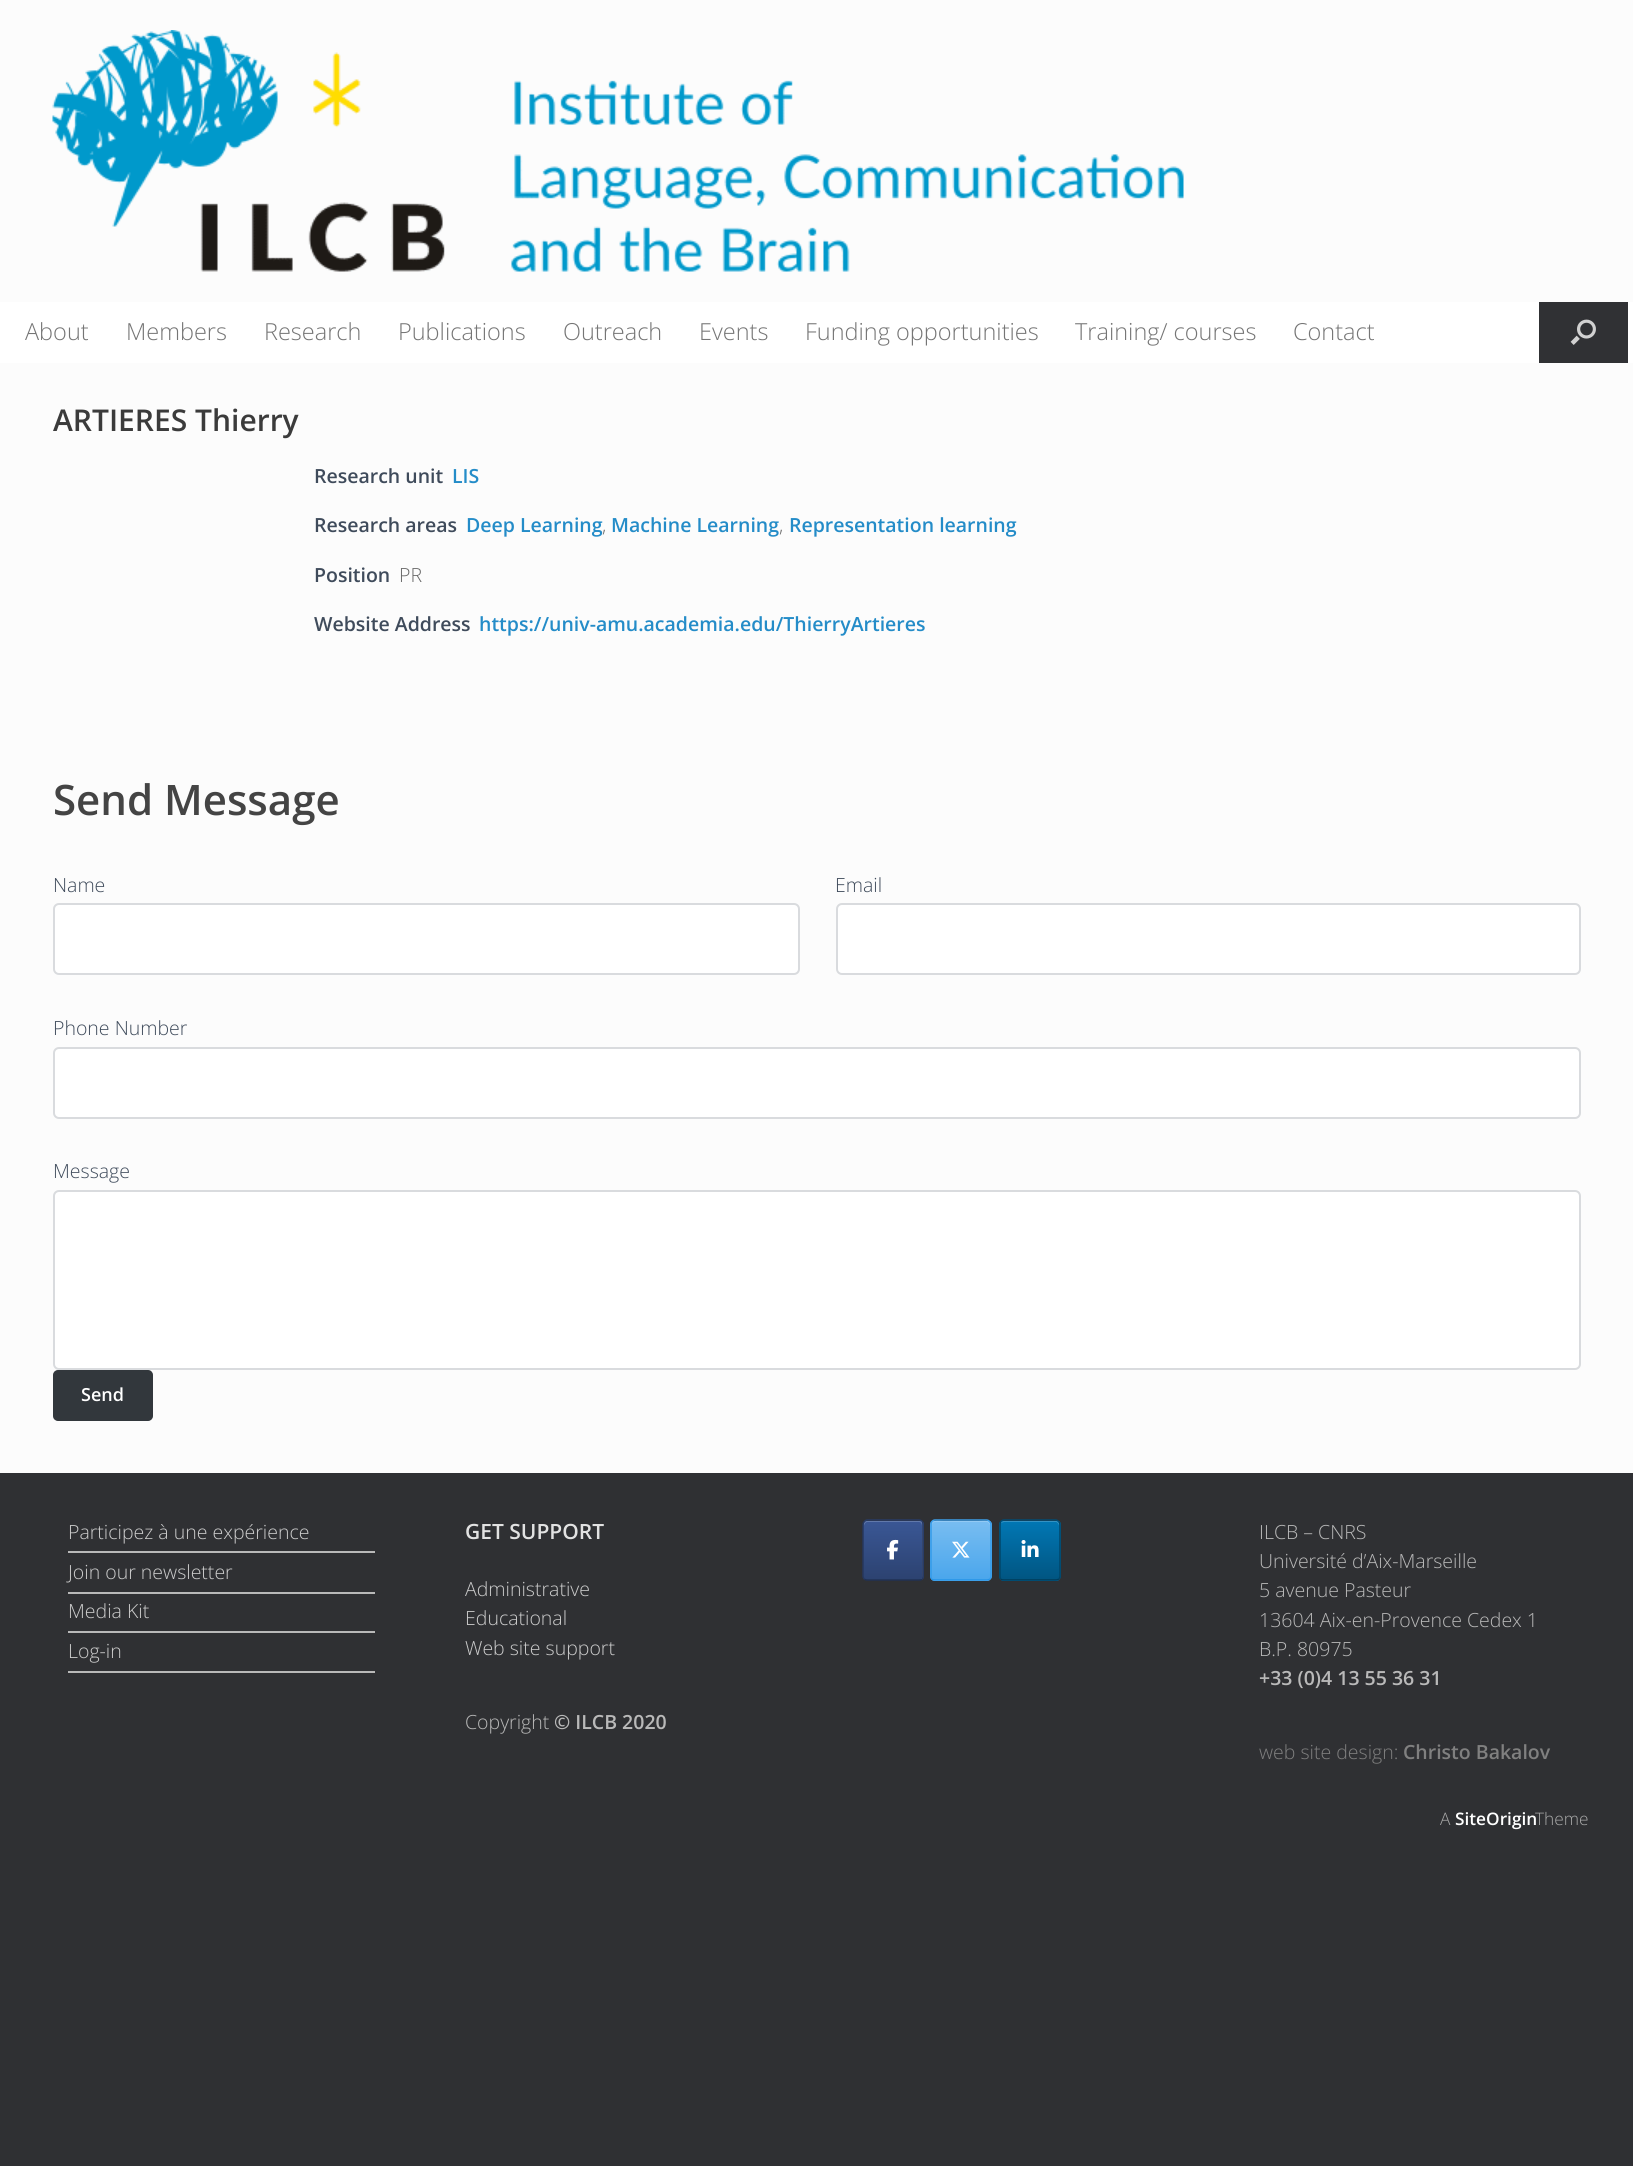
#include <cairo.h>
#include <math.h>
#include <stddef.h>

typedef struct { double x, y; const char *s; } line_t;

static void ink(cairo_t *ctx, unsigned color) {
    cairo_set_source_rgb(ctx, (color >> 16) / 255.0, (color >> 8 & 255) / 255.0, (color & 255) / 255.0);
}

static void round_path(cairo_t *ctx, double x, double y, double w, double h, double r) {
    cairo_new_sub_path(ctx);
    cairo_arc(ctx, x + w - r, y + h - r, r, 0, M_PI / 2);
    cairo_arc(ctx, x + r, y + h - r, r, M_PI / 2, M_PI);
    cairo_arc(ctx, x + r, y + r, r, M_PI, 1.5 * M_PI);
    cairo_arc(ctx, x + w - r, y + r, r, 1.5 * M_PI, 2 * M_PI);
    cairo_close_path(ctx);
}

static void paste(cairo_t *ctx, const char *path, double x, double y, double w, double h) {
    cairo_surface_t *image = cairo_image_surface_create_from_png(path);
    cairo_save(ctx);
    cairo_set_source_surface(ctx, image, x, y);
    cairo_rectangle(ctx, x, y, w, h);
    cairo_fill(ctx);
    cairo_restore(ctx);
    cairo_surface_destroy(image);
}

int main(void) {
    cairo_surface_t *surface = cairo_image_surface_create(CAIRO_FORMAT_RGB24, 1633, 2166);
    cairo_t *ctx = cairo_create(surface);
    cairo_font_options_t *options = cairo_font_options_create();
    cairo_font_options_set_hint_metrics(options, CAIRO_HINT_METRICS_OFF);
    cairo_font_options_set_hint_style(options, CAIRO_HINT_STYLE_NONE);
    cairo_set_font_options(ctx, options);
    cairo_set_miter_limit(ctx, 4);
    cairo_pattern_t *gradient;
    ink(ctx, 0x2F3033);
    cairo_paint(ctx);
    ink(ctx, 0xFCFCFC);
    cairo_rectangle(ctx, 0, 0, 1633, 302);
    cairo_fill(ctx);
    paste(ctx, "media/1.png", 52, 30, 1132, 242);
    ink(ctx, 0xFFFFFF);
    cairo_rectangle(ctx, 0, 302, 1633, 61);
    cairo_fill(ctx);
    cairo_select_font_face(ctx, "Open Sans Light", CAIRO_FONT_SLANT_NORMAL, CAIRO_FONT_WEIGHT_NORMAL);
    cairo_set_font_size(ctx, 23.5);
    ink(ctx, 0x757575);
    {
        static const line_t items[] = {
            {25, 340, "About"},
            {126, 340, "Members"},
            {264, 340, "Research"},
            {398, 340, "Publications"},
            {563, 340, "Outreach"},
            {699, 340, "Events"},
            {805, 340, "Funding opportunities"},
            {1075, 340, "Training/ courses"},
            {1293, 340, "Contact"},
        };
        for (size_t i = 0; i < sizeof items / sizeof *items; i++) {
            cairo_move_to(ctx, items[i].x, items[i].y);
            cairo_show_text(ctx, items[i].s);
        }
    }
    ink(ctx, 0x303134);
    cairo_rectangle(ctx, 1539, 302, 89, 61);
    cairo_fill(ctx);
    paste(ctx, "media/2.png", 1570, 319, 26, 26);
    ink(ctx, 0xFCFCFC);
    cairo_rectangle(ctx, 0, 363, 1633, 1110);
    cairo_fill(ctx);
    cairo_select_font_face(ctx, "Open Sans SemiBold", CAIRO_FONT_SLANT_NORMAL, CAIRO_FONT_WEIGHT_NORMAL);
    cairo_set_font_size(ctx, 30);
    ink(ctx, 0x3B3B3B);
    cairo_move_to(ctx, 53, 431);
    cairo_show_text(ctx, "ARTIERES Thierry");
    cairo_set_font_size(ctx, 19.5);
    ink(ctx, 0x3F4B5B);
    cairo_move_to(ctx, 314, 483);
    cairo_show_text(ctx, "Research unit");
    ink(ctx, 0x248CC8);
    cairo_move_to(ctx, 452, 483);
    cairo_show_text(ctx, "LIS");
    ink(ctx, 0x3F4B5B);
    cairo_move_to(ctx, 314, 532);
    cairo_show_text(ctx, "Research areas");
    ink(ctx, 0x248CC8);
    cairo_move_to(ctx, 466, 532);
    cairo_show_text(ctx, "Deep Learning");
    cairo_select_font_face(ctx, "Open Sans Light", CAIRO_FONT_SLANT_NORMAL, CAIRO_FONT_WEIGHT_NORMAL);
    ink(ctx, 0x666666);
    cairo_move_to(ctx, 602, 532);
    cairo_show_text(ctx, ",");
    cairo_select_font_face(ctx, "Open Sans SemiBold", CAIRO_FONT_SLANT_NORMAL, CAIRO_FONT_WEIGHT_NORMAL);
    ink(ctx, 0x248CC8);
    cairo_move_to(ctx, 611, 532);
    cairo_show_text(ctx, "Machine Learning");
    cairo_select_font_face(ctx, "Open Sans Light", CAIRO_FONT_SLANT_NORMAL, CAIRO_FONT_WEIGHT_NORMAL);
    ink(ctx, 0x666666);
    cairo_move_to(ctx, 779, 532);
    cairo_show_text(ctx, ",");
    cairo_select_font_face(ctx, "Open Sans SemiBold", CAIRO_FONT_SLANT_NORMAL, CAIRO_FONT_WEIGHT_NORMAL);
    ink(ctx, 0x248CC8);
    cairo_move_to(ctx, 789, 532);
    cairo_show_text(ctx, "Representation learning");
    ink(ctx, 0x3F4B5B);
    cairo_move_to(ctx, 314, 582);
    cairo_show_text(ctx, "Position");
    cairo_select_font_face(ctx, "Open Sans Light", CAIRO_FONT_SLANT_NORMAL, CAIRO_FONT_WEIGHT_NORMAL);
    ink(ctx, 0x666666);
    cairo_move_to(ctx, 399, 582);
    cairo_show_text(ctx, "PR");
    cairo_select_font_face(ctx, "Open Sans SemiBold", CAIRO_FONT_SLANT_NORMAL, CAIRO_FONT_WEIGHT_NORMAL);
    ink(ctx, 0x3F4B5B);
    cairo_move_to(ctx, 314, 631);
    cairo_show_text(ctx, "Website Address");
    ink(ctx, 0x248CC8);
    cairo_move_to(ctx, 479, 631);
    cairo_show_text(ctx, "https://univ-amu.academia.edu/ThierryArtieres");
    cairo_set_font_size(ctx, 42);
    ink(ctx, 0x444444);
    cairo_move_to(ctx, 53, 815);
    cairo_show_text(ctx, "Send Message");
    cairo_select_font_face(ctx, "Open Sans Light", CAIRO_FONT_SLANT_NORMAL, CAIRO_FONT_WEIGHT_NORMAL);
    cairo_set_font_size(ctx, 19.5);
    ink(ctx, 0x3F4B5B);
    cairo_move_to(ctx, 53, 892);
    cairo_show_text(ctx, "Name");
    ink(ctx, 0xFFFFFF);
    round_path(ctx, 54, 904, 745, 70, 5);
    cairo_fill_preserve(ctx);
    ink(ctx, 0xD9DBDE);
    cairo_stroke(ctx);
    ink(ctx, 0x3F4B5B);
    cairo_move_to(ctx, 835, 892);
    cairo_show_text(ctx, "Email");
    ink(ctx, 0xFFFFFF);
    round_path(ctx, 837, 904, 743, 70, 5);
    cairo_fill_preserve(ctx);
    ink(ctx, 0xD9DBDE);
    cairo_stroke(ctx);
    ink(ctx, 0x3F4B5B);
    cairo_move_to(ctx, 53, 1035);
    cairo_show_text(ctx, "Phone Number");
    ink(ctx, 0xFFFFFF);
    round_path(ctx, 54, 1048, 1526, 70, 5);
    cairo_fill_preserve(ctx);
    ink(ctx, 0xD9DBDE);
    cairo_stroke(ctx);
    ink(ctx, 0x3F4B5B);
    cairo_move_to(ctx, 53, 1178);
    cairo_show_text(ctx, "Message");
    ink(ctx, 0xFFFFFF);
    round_path(ctx, 54, 1191, 1526, 178, 5);
    cairo_fill_preserve(ctx);
    ink(ctx, 0xD9DBDE);
    cairo_stroke(ctx);
    ink(ctx, 0x32373C);
    round_path(ctx, 54, 1371, 98, 49, 4);
    cairo_fill_preserve(ctx);
    cairo_stroke(ctx);
    cairo_select_font_face(ctx, "Open Sans SemiBold", CAIRO_FONT_SLANT_NORMAL, CAIRO_FONT_WEIGHT_NORMAL);
    cairo_set_font_size(ctx, 18);
    ink(ctx, 0xFFFFFF);
    cairo_move_to(ctx, 81, 1401);
    cairo_show_text(ctx, "Send");
    ink(ctx, 0xB9B9B9);
    cairo_rectangle(ctx, 68, 1551, 307, 2);
    cairo_fill(ctx);
    cairo_select_font_face(ctx, "Open Sans Light", CAIRO_FONT_SLANT_NORMAL, CAIRO_FONT_WEIGHT_NORMAL);
    cairo_set_font_size(ctx, 19.5);
    ink(ctx, 0xCCCCCC);
    cairo_move_to(ctx, 68, 1539);
    cairo_show_text(ctx, "Participez à une expérience");
    ink(ctx, 0xB9B9B9);
    cairo_rectangle(ctx, 68, 1592, 307, 2);
    cairo_fill(ctx);
    ink(ctx, 0xCCCCCC);
    cairo_move_to(ctx, 68, 1579);
    cairo_show_text(ctx, "Join our newsletter");
    ink(ctx, 0xB9B9B9);
    cairo_rectangle(ctx, 68, 1631, 307, 2);
    cairo_fill(ctx);
    ink(ctx, 0xCCCCCC);
    cairo_move_to(ctx, 68, 1618);
    cairo_show_text(ctx, "Media Kit");
    ink(ctx, 0xB9B9B9);
    cairo_rectangle(ctx, 68, 1671, 307, 2);
    cairo_fill(ctx);
    ink(ctx, 0xCCCCCC);
    cairo_move_to(ctx, 68, 1658);
    cairo_show_text(ctx, "Log-in");
    cairo_select_font_face(ctx, "Open Sans SemiBold", CAIRO_FONT_SLANT_NORMAL, CAIRO_FONT_WEIGHT_NORMAL);
    cairo_set_font_size(ctx, 21);
    ink(ctx, 0xE2E2E2);
    cairo_move_to(ctx, 465, 1539);
    cairo_show_text(ctx, "GET SUPPORT");
    cairo_select_font_face(ctx, "Open Sans Light", CAIRO_FONT_SLANT_NORMAL, CAIRO_FONT_WEIGHT_NORMAL);
    cairo_set_font_size(ctx, 19.5);
    ink(ctx, 0xCCCCCC);
    {
        static const line_t items[] = {
            {465, 1596, "Administrative"},
            {465, 1625, "Educational"},
            {465, 1655, "Web site support"},
        };
        for (size_t i = 0; i < sizeof items / sizeof *items; i++) {
            cairo_move_to(ctx, items[i].x, items[i].y);
            cairo_show_text(ctx, items[i].s);
        }
    }
    ink(ctx, 0xB9B9B9);
    cairo_move_to(ctx, 465, 1729);
    cairo_show_text(ctx, "Copyright");
    cairo_select_font_face(ctx, "Open Sans SemiBold", CAIRO_FONT_SLANT_NORMAL, CAIRO_FONT_WEIGHT_NORMAL);
    cairo_move_to(ctx, 554, 1729);
    cairo_show_text(ctx, "© ILCB 2020");
    cairo_save(ctx);
    round_path(ctx, 863, 1520, 61, 61, 5);
    cairo_clip(ctx);
    gradient = cairo_pattern_create_linear(864, 1580, 864, 1521);
    cairo_pattern_add_color_stop_rgba(gradient, 0, 0.173, 0.259, 0.439, 1);
    cairo_pattern_add_color_stop_rgba(gradient, 1, 0.227, 0.341, 0.584, 1);
    cairo_set_source(ctx, gradient);
    cairo_pattern_destroy(gradient);
    cairo_rectangle(ctx, 863, 1521, 61, 59);
    cairo_fill(ctx);
    cairo_restore(ctx);
    cairo_set_source_rgba(ctx, 1, 1, 1, 0.2);
    cairo_new_path(ctx);
    cairo_move_to(ctx, 867, 1522);
    cairo_line_to(ctx, 919, 1522);
    cairo_curve_to(ctx, 921, 1522, 922, 1524, 922, 1526);
    cairo_line_to(ctx, 922, 1578);
    cairo_line_to(ctx, 921, 1580);
    cairo_curve_to(ctx, 922, 1579, 923, 1578, 923, 1577);
    cairo_line_to(ctx, 923, 1524);
    cairo_curve_to(ctx, 923, 1522, 922, 1521, 920, 1521);
    cairo_line_to(ctx, 867, 1521);
    cairo_curve_to(ctx, 865, 1521, 864, 1522, 864, 1524);
    cairo_line_to(ctx, 864, 1526);
    cairo_curve_to(ctx, 864, 1524, 866, 1522, 867, 1522);
    cairo_close_path(ctx);
    cairo_fill(ctx);
    cairo_new_path(ctx);
    cairo_move_to(ctx, 864.5, 1521.5);
    cairo_curve_to(ctx, 865, 1520.5, 866.5, 1520, 867.5, 1520);
    cairo_line_to(ctx, 919, 1520);
    cairo_curve_to(ctx, 920, 1520, 921.5, 1520.5, 922, 1521.5);
    ink(ctx, 0x273B65);
    cairo_set_line_width(ctx, 1.5);
    cairo_stroke(ctx);
    cairo_new_path(ctx);
    cairo_move_to(ctx, 922, 1521.5);
    cairo_curve_to(ctx, 923, 1522, 923, 1523.5, 923, 1524.5);
    cairo_line_to(ctx, 923, 1576);
    cairo_curve_to(ctx, 923, 1577, 923, 1578.5, 922, 1579);
    ink(ctx, 0x25375E);
    cairo_stroke(ctx);
    cairo_new_path(ctx);
    cairo_move_to(ctx, 922, 1579);
    cairo_curve_to(ctx, 921.5, 1580, 920, 1580, 919, 1580);
    cairo_line_to(ctx, 867.5, 1580);
    cairo_curve_to(ctx, 866.5, 1580, 865, 1580, 864.5, 1579);
    ink(ctx, 0x203053);
    cairo_stroke(ctx);
    cairo_new_path(ctx);
    cairo_move_to(ctx, 864.5, 1579);
    cairo_curve_to(ctx, 863.5, 1578.5, 863, 1577, 863, 1576);
    cairo_line_to(ctx, 863, 1524.5);
    cairo_curve_to(ctx, 863, 1523.5, 863.5, 1522, 864.5, 1521.5);
    ink(ctx, 0x25375E);
    cairo_stroke(ctx);
    paste(ctx, "media/3.png", 887, 1539, 12, 21);
    cairo_save(ctx);
    round_path(ctx, 930, 1520, 62, 61, 5);
    cairo_clip(ctx);
    gradient = cairo_pattern_create_linear(932, 1580, 932, 1521);
    cairo_pattern_add_color_stop_rgba(gradient, 0, 0.29, 0.651, 0.925, 1);
    cairo_pattern_add_color_stop_rgba(gradient, 1, 0.471, 0.741, 0.945, 1);
    cairo_set_source(ctx, gradient);
    cairo_pattern_destroy(gradient);
    cairo_rectangle(ctx, 930, 1521, 62, 59);
    cairo_fill(ctx);
    gradient = cairo_pattern_create_linear(932, 1638, 932, 1580);
    cairo_pattern_add_color_stop_rgba(gradient, 0, 0.29, 0.651, 0.925, 1);
    cairo_pattern_add_color_stop_rgba(gradient, 1, 0.471, 0.741, 0.945, 1);
    cairo_set_source(ctx, gradient);
    cairo_pattern_destroy(gradient);
    cairo_rectangle(ctx, 930, 1580, 62, 1);
    cairo_fill(ctx);
    cairo_restore(ctx);
    ink(ctx, 0x93CAF4);
    cairo_new_path(ctx);
    cairo_move_to(ctx, 935, 1522);
    cairo_line_to(ctx, 987, 1522);
    cairo_curve_to(ctx, 988, 1522, 990, 1524, 990, 1526);
    cairo_curve_to(ctx, 990, 1519, 985, 1521, 978, 1521);
    cairo_line_to(ctx, 944, 1521);
    cairo_curve_to(ctx, 937, 1521, 932, 1519, 932, 1526);
    cairo_curve_to(ctx, 932, 1524, 933, 1522, 935, 1522);
    cairo_close_path(ctx);
    cairo_fill(ctx);
    cairo_new_path(ctx);
    cairo_move_to(ctx, 932, 1521.5);
    cairo_curve_to(ctx, 932.5, 1520.5, 934, 1520, 935, 1520);
    cairo_line_to(ctx, 986.5, 1520);
    cairo_curve_to(ctx, 987.5, 1520, 989, 1520.5, 989.5, 1521.5);
    ink(ctx, 0x3CA0EB);
    cairo_stroke(ctx);
    cairo_new_path(ctx);
    cairo_move_to(ctx, 989.5, 1521.5);
    cairo_curve_to(ctx, 990.5, 1522, 991, 1523.5, 991, 1524.5);
    cairo_line_to(ctx, 991, 1576);
    cairo_curve_to(ctx, 991, 1577, 990.5, 1578.5, 989.5, 1579);
    ink(ctx, 0x339BEA);
    cairo_stroke(ctx);
    cairo_new_path(ctx);
    cairo_move_to(ctx, 989.5, 1579);
    cairo_curve_to(ctx, 989, 1580, 987.5, 1580, 986.5, 1580);
    cairo_line_to(ctx, 935, 1580);
    cairo_curve_to(ctx, 934, 1580, 932.5, 1580, 932, 1579);
    ink(ctx, 0x2594E8);
    cairo_stroke(ctx);
    cairo_new_path(ctx);
    cairo_move_to(ctx, 932, 1579);
    cairo_curve_to(ctx, 931, 1578.5, 931, 1577, 931, 1576);
    cairo_line_to(ctx, 931, 1524.5);
    cairo_curve_to(ctx, 931, 1523.5, 931, 1522, 932, 1521.5);
    ink(ctx, 0x339BEA);
    cairo_stroke(ctx);
    paste(ctx, "media/4.png", 952, 1541, 18, 17);
    cairo_save(ctx);
    round_path(ctx, 999, 1520, 62, 61, 5);
    cairo_clip(ctx);
    gradient = cairo_pattern_create_linear(1001, 1580, 1001, 1521);
    cairo_pattern_add_color_stop_rgba(gradient, 0, 0.004, 0.333, 0.506, 1);
    cairo_pattern_add_color_stop_rgba(gradient, 1, 0.004, 0.467, 0.706, 1);
    cairo_set_source(ctx, gradient);
    cairo_pattern_destroy(gradient);
    cairo_rectangle(ctx, 999, 1521, 62, 59);
    cairo_fill(ctx);
    gradient = cairo_pattern_create_linear(1001, 1638, 1001, 1580);
    cairo_pattern_add_color_stop_rgba(gradient, 0, 0.004, 0.333, 0.506, 1);
    cairo_pattern_add_color_stop_rgba(gradient, 1, 0.004, 0.467, 0.706, 1);
    cairo_set_source(ctx, gradient);
    cairo_pattern_destroy(gradient);
    cairo_rectangle(ctx, 999, 1580, 62, 1);
    cairo_fill(ctx);
    cairo_restore(ctx);
    ink(ctx, 0x3492C3);
    cairo_new_path(ctx);
    cairo_move_to(ctx, 1004, 1522);
    cairo_line_to(ctx, 1056, 1522);
    cairo_curve_to(ctx, 1057, 1522, 1059, 1524, 1059, 1526);
    cairo_line_to(ctx, 1059, 1524);
    cairo_curve_to(ctx, 1059, 1522, 1058, 1521, 1056, 1521);
    cairo_line_to(ctx, 1004, 1521);
    cairo_curve_to(ctx, 1003, 1521, 1001, 1522, 1001, 1523);
    cairo_close_path(ctx);
    cairo_fill(ctx);
    cairo_new_path(ctx);
    cairo_move_to(ctx, 1001, 1521.5);
    cairo_curve_to(ctx, 1001.5, 1520.5, 1003, 1520, 1004, 1520);
    cairo_line_to(ctx, 1055.5, 1520);
    cairo_curve_to(ctx, 1056.5, 1520, 1058, 1520.5, 1058.5, 1521.5);
    ink(ctx, 0x014B72);
    cairo_stroke(ctx);
    cairo_new_path(ctx);
    cairo_move_to(ctx, 1058.5, 1521.5);
    cairo_curve_to(ctx, 1059.5, 1522, 1060, 1523.5, 1060, 1524.5);
    cairo_line_to(ctx, 1060, 1576);
    cairo_curve_to(ctx, 1060, 1577, 1059.5, 1578.5, 1058.5, 1579);
    ink(ctx, 0x014568);
    cairo_stroke(ctx);
    cairo_new_path(ctx);
    cairo_move_to(ctx, 1058.5, 1579);
    cairo_curve_to(ctx, 1058, 1580, 1056.5, 1580, 1055.5, 1580);
    cairo_line_to(ctx, 1004, 1580);
    cairo_curve_to(ctx, 1003, 1580, 1001.5, 1580, 1001, 1579);
    ink(ctx, 0x003B59);
    cairo_stroke(ctx);
    cairo_new_path(ctx);
    cairo_move_to(ctx, 1001, 1579);
    cairo_curve_to(ctx, 1000, 1578.5, 1000, 1577, 1000, 1576);
    cairo_line_to(ctx, 1000, 1524.5);
    cairo_curve_to(ctx, 1000, 1523.5, 1000, 1522, 1001, 1521.5);
    ink(ctx, 0x014568);
    cairo_stroke(ctx);
    paste(ctx, "media/5.png", 1021, 1540, 18, 17);
    cairo_select_font_face(ctx, "Open Sans Light", CAIRO_FONT_SLANT_NORMAL, CAIRO_FONT_WEIGHT_NORMAL);
    ink(ctx, 0xB9B9B9);
    {
        static const line_t items[] = {
            {1259, 1539, "ILCB – CNRS"},
            {1259, 1568, "Université d’Aix-Marseille"},
            {1259, 1597, "5 avenue Pasteur"},
            {1259, 1627, "13604 Aix-en-Provence Cedex 1"},
            {1259, 1656, "B.P. 80975"},
        };
        for (size_t i = 0; i < sizeof items / sizeof *items; i++) {
            cairo_move_to(ctx, items[i].x, items[i].y);
            cairo_show_text(ctx, items[i].s);
        }
    }
    cairo_select_font_face(ctx, "Open Sans SemiBold", CAIRO_FONT_SLANT_NORMAL, CAIRO_FONT_WEIGHT_NORMAL);
    cairo_move_to(ctx, 1259, 1685);
    cairo_show_text(ctx, "+33 (0)4 13 55 36 31");
    cairo_select_font_face(ctx, "Open Sans Light", CAIRO_FONT_SLANT_NORMAL, CAIRO_FONT_WEIGHT_NORMAL);
    ink(ctx, 0x808080);
    cairo_move_to(ctx, 1259, 1759);
    cairo_show_text(ctx, "web site design:");
    cairo_select_font_face(ctx, "Open Sans SemiBold", CAIRO_FONT_SLANT_NORMAL, CAIRO_FONT_WEIGHT_NORMAL);
    cairo_move_to(ctx, 1403, 1759);
    cairo_show_text(ctx, "Christo Bakalov");
    cairo_select_font_face(ctx, "Open Sans Light", CAIRO_FONT_SLANT_NORMAL, CAIRO_FONT_WEIGHT_NORMAL);
    cairo_set_font_size(ctx, 17.25);
    ink(ctx, 0xAAAAAA);
    cairo_move_to(ctx, 1440, 1825);
    cairo_show_text(ctx, "A");
    cairo_select_font_face(ctx, "Open Sans SemiBold", CAIRO_FONT_SLANT_NORMAL, CAIRO_FONT_WEIGHT_NORMAL);
    ink(ctx, 0xFFFFFF);
    cairo_move_to(ctx, 1455, 1825);
    cairo_show_text(ctx, "SiteOrigin");
    cairo_select_font_face(ctx, "Open Sans Light", CAIRO_FONT_SLANT_NORMAL, CAIRO_FONT_WEIGHT_NORMAL);
    ink(ctx, 0xAAAAAA);
    cairo_move_to(ctx, 1535, 1825);
    cairo_show_text(ctx, "Theme");
    cairo_surface_write_to_png(surface, "image.png");
    cairo_font_options_destroy(options);
    cairo_destroy(ctx);
    cairo_surface_destroy(surface);
    return 0;
}
